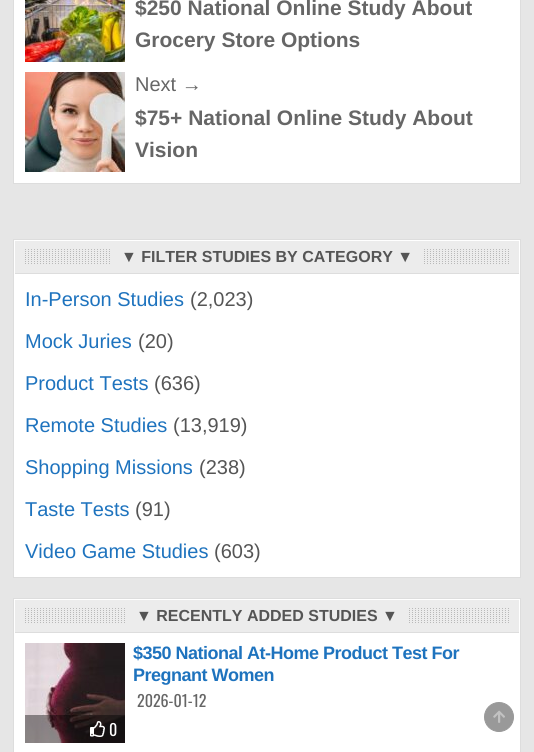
#include <cairo.h>
#include <math.h>
#include <stddef.h>


static void ink(cairo_t *ctx, unsigned color) {
    cairo_set_source_rgb(ctx, (color >> 16) / 255.0, (color >> 8 & 255) / 255.0, (color & 255) / 255.0);
}

static void write_spaced(cairo_t *ctx, double x, double y, const char *s, double letter, double word) {
    cairo_move_to(ctx, x, y);
    while (*s) {
        char ch[5] = {0};
        int n = 0;
        do ch[n++] = *s++; while ((*s & 0xC0) == 0x80);
        cairo_show_text(ctx, ch);
        cairo_rel_move_to(ctx, letter + word * (*ch == ' '), 0);
    }
}

static void paste(cairo_t *ctx, const char *path, double x, double y, double w, double h) {
    cairo_surface_t *image = cairo_image_surface_create_from_png(path);
    cairo_save(ctx);
    cairo_set_source_surface(ctx, image, x, y);
    cairo_rectangle(ctx, x, y, w, h);
    cairo_fill(ctx);
    cairo_restore(ctx);
    cairo_surface_destroy(image);
}

int main(void) {
    cairo_surface_t *surface = cairo_image_surface_create(CAIRO_FORMAT_RGB24, 534, 752);
    cairo_t *ctx = cairo_create(surface);
    cairo_font_options_t *options = cairo_font_options_create();
    cairo_font_options_set_hint_metrics(options, CAIRO_HINT_METRICS_OFF);
    cairo_font_options_set_hint_style(options, CAIRO_HINT_STYLE_NONE);
    cairo_set_font_options(ctx, options);
    cairo_set_miter_limit(ctx, 4);
    ink(ctx, 0xE6E6E6);
    cairo_paint(ctx);
    ink(ctx, 0xFFFFFF);
    cairo_rectangle(ctx, 13.5, -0.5, 507, 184);
    cairo_fill_preserve(ctx);
    ink(ctx, 0xDDDDDD);
    cairo_set_line_width(ctx, 1);
    cairo_stroke(ctx);
    paste(ctx, "media/1.png", 25, 0, 100, 62);
    cairo_select_font_face(ctx, "Liberation Sans", CAIRO_FONT_SLANT_NORMAL, CAIRO_FONT_WEIGHT_BOLD);
    cairo_set_font_size(ctx, 21);
    ink(ctx, 0x666666);
    cairo_move_to(ctx, 135, 15);
    cairo_show_text(ctx, "$250 National Online Study About");
    cairo_move_to(ctx, 135, 47);
    cairo_show_text(ctx, "Grocery Store Options");
    paste(ctx, "media/2.png", 25, 72, 100, 100);
    cairo_select_font_face(ctx, "Liberation Sans", CAIRO_FONT_SLANT_NORMAL, CAIRO_FONT_WEIGHT_NORMAL);
    cairo_set_font_size(ctx, 20);
    cairo_move_to(ctx, 135, 91);
    cairo_show_text(ctx, "Next →");
    cairo_select_font_face(ctx, "Liberation Sans", CAIRO_FONT_SLANT_NORMAL, CAIRO_FONT_WEIGHT_BOLD);
    cairo_set_font_size(ctx, 21);
    cairo_move_to(ctx, 135, 125);
    cairo_show_text(ctx, "$75+ National Online Study About");
    cairo_move_to(ctx, 135, 157);
    cairo_show_text(ctx, "Vision");
    ink(ctx, 0xFFFFFF);
    cairo_rectangle(ctx, 13.5, 239.5, 507, 338);
    cairo_fill_preserve(ctx);
    ink(ctx, 0xDDDDDD);
    cairo_stroke(ctx);
    ink(ctx, 0xECECEC);
    cairo_rectangle(ctx, 15, 241, 504, 32);
    cairo_fill(ctx);
    ink(ctx, 0xDDDDDD);
    cairo_rectangle(ctx, 15, 273, 504, 1);
    cairo_fill(ctx);
    paste(ctx, "media/3.png", 25, 249, 484, 15);
    ink(ctx, 0xECECEC);
    cairo_rectangle(ctx, 112, 249, 310, 15);
    cairo_fill(ctx);
    cairo_set_font_size(ctx, 16);
    ink(ctx, 0x555555);
    cairo_move_to(ctx, 121, 262);
    cairo_show_text(ctx, "▼ FILTER STUDIES BY CATEGORY ▼");
    cairo_select_font_face(ctx, "Liberation Sans", CAIRO_FONT_SLANT_NORMAL, CAIRO_FONT_WEIGHT_NORMAL);
    cairo_set_font_size(ctx, 20);
    ink(ctx, 0x1E73BE);
    cairo_move_to(ctx, 25, 306);
    cairo_show_text(ctx, "In-Person Studies");
    ink(ctx, 0x555555);
    cairo_move_to(ctx, 190, 306);
    cairo_show_text(ctx, "(2,023)");
    ink(ctx, 0x1E73BE);
    cairo_move_to(ctx, 25, 348);
    cairo_show_text(ctx, "Mock Juries");
    ink(ctx, 0x555555);
    cairo_move_to(ctx, 138, 348);
    cairo_show_text(ctx, "(20)");
    ink(ctx, 0x1E73BE);
    cairo_move_to(ctx, 25, 390);
    cairo_show_text(ctx, "Product Tests");
    ink(ctx, 0x555555);
    cairo_move_to(ctx, 154, 390);
    cairo_show_text(ctx, "(636)");
    ink(ctx, 0x1E73BE);
    cairo_move_to(ctx, 25, 432);
    cairo_show_text(ctx, "Remote Studies");
    ink(ctx, 0x555555);
    cairo_move_to(ctx, 173, 432);
    cairo_show_text(ctx, "(13,919)");
    ink(ctx, 0x1E73BE);
    cairo_move_to(ctx, 25, 474);
    cairo_show_text(ctx, "Shopping Missions");
    ink(ctx, 0x555555);
    cairo_move_to(ctx, 199, 474);
    cairo_show_text(ctx, "(238)");
    ink(ctx, 0x1E73BE);
    cairo_move_to(ctx, 25, 516);
    cairo_show_text(ctx, "Taste Tests");
    ink(ctx, 0x555555);
    cairo_move_to(ctx, 135, 516);
    cairo_show_text(ctx, "(91)");
    ink(ctx, 0x1E73BE);
    cairo_move_to(ctx, 25, 558);
    cairo_show_text(ctx, "Video Game Studies");
    ink(ctx, 0x555555);
    cairo_move_to(ctx, 214, 558);
    cairo_show_text(ctx, "(603)");
    ink(ctx, 0xFFFFFF);
    cairo_rectangle(ctx, 13.5, 598.5, 507, 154);
    cairo_fill_preserve(ctx);
    ink(ctx, 0xDDDDDD);
    cairo_stroke(ctx);
    ink(ctx, 0xECECEC);
    cairo_rectangle(ctx, 15, 600, 504, 32);
    cairo_fill(ctx);
    ink(ctx, 0xDDDDDD);
    cairo_rectangle(ctx, 15, 632, 504, 1);
    cairo_fill(ctx);
    paste(ctx, "media/3.png", 25, 608, 484, 15);
    ink(ctx, 0xECECEC);
    cairo_rectangle(ctx, 127, 608, 280, 15);
    cairo_fill(ctx);
    cairo_select_font_face(ctx, "Liberation Sans", CAIRO_FONT_SLANT_NORMAL, CAIRO_FONT_WEIGHT_BOLD);
    cairo_set_font_size(ctx, 16);
    ink(ctx, 0x555555);
    cairo_move_to(ctx, 136, 621);
    cairo_show_text(ctx, "▼ RECENTLY ADDED STUDIES ▼");
    cairo_set_font_size(ctx, 18);
    ink(ctx, 0x1E73BE);
    write_spaced(ctx, 133, 659, "$350 National At-Home Product Test For", -0.5, 0);
    write_spaced(ctx, 133, 681, "Pregnant Women", -0.5, 0);
    cairo_select_font_face(ctx, "Oswald", CAIRO_FONT_SLANT_NORMAL, CAIRO_FONT_WEIGHT_NORMAL);
    cairo_set_font_size(ctx, 16);
    ink(ctx, 0x666666);
    cairo_move_to(ctx, 137, 707);
    cairo_show_text(ctx, "2026-01-12");
    paste(ctx, "media/4.png", 25, 643, 100, 100);
    cairo_set_source_rgba(ctx, 0, 0, 0, 0.4);
    cairo_rectangle(ctx, 25, 715, 100, 28);
    cairo_fill(ctx);
    paste(ctx, "media/5.png", 90, 721, 15, 16);
    ink(ctx, 0xFFFFFF);
    cairo_move_to(ctx, 109, 736);
    cairo_show_text(ctx, "0");
    ink(ctx, 0x999999);
    cairo_new_path(ctx);
    cairo_arc(ctx, 499, 717, 14.5, 0, 2 * M_PI);
    cairo_fill_preserve(ctx);
    cairo_stroke(ctx);
    paste(ctx, "media/6.png", 493, 710, 12, 13);
    cairo_surface_write_to_png(surface, "image.png");
    cairo_font_options_destroy(options);
    cairo_destroy(ctx);
    cairo_surface_destroy(surface);
    return 0;
}
